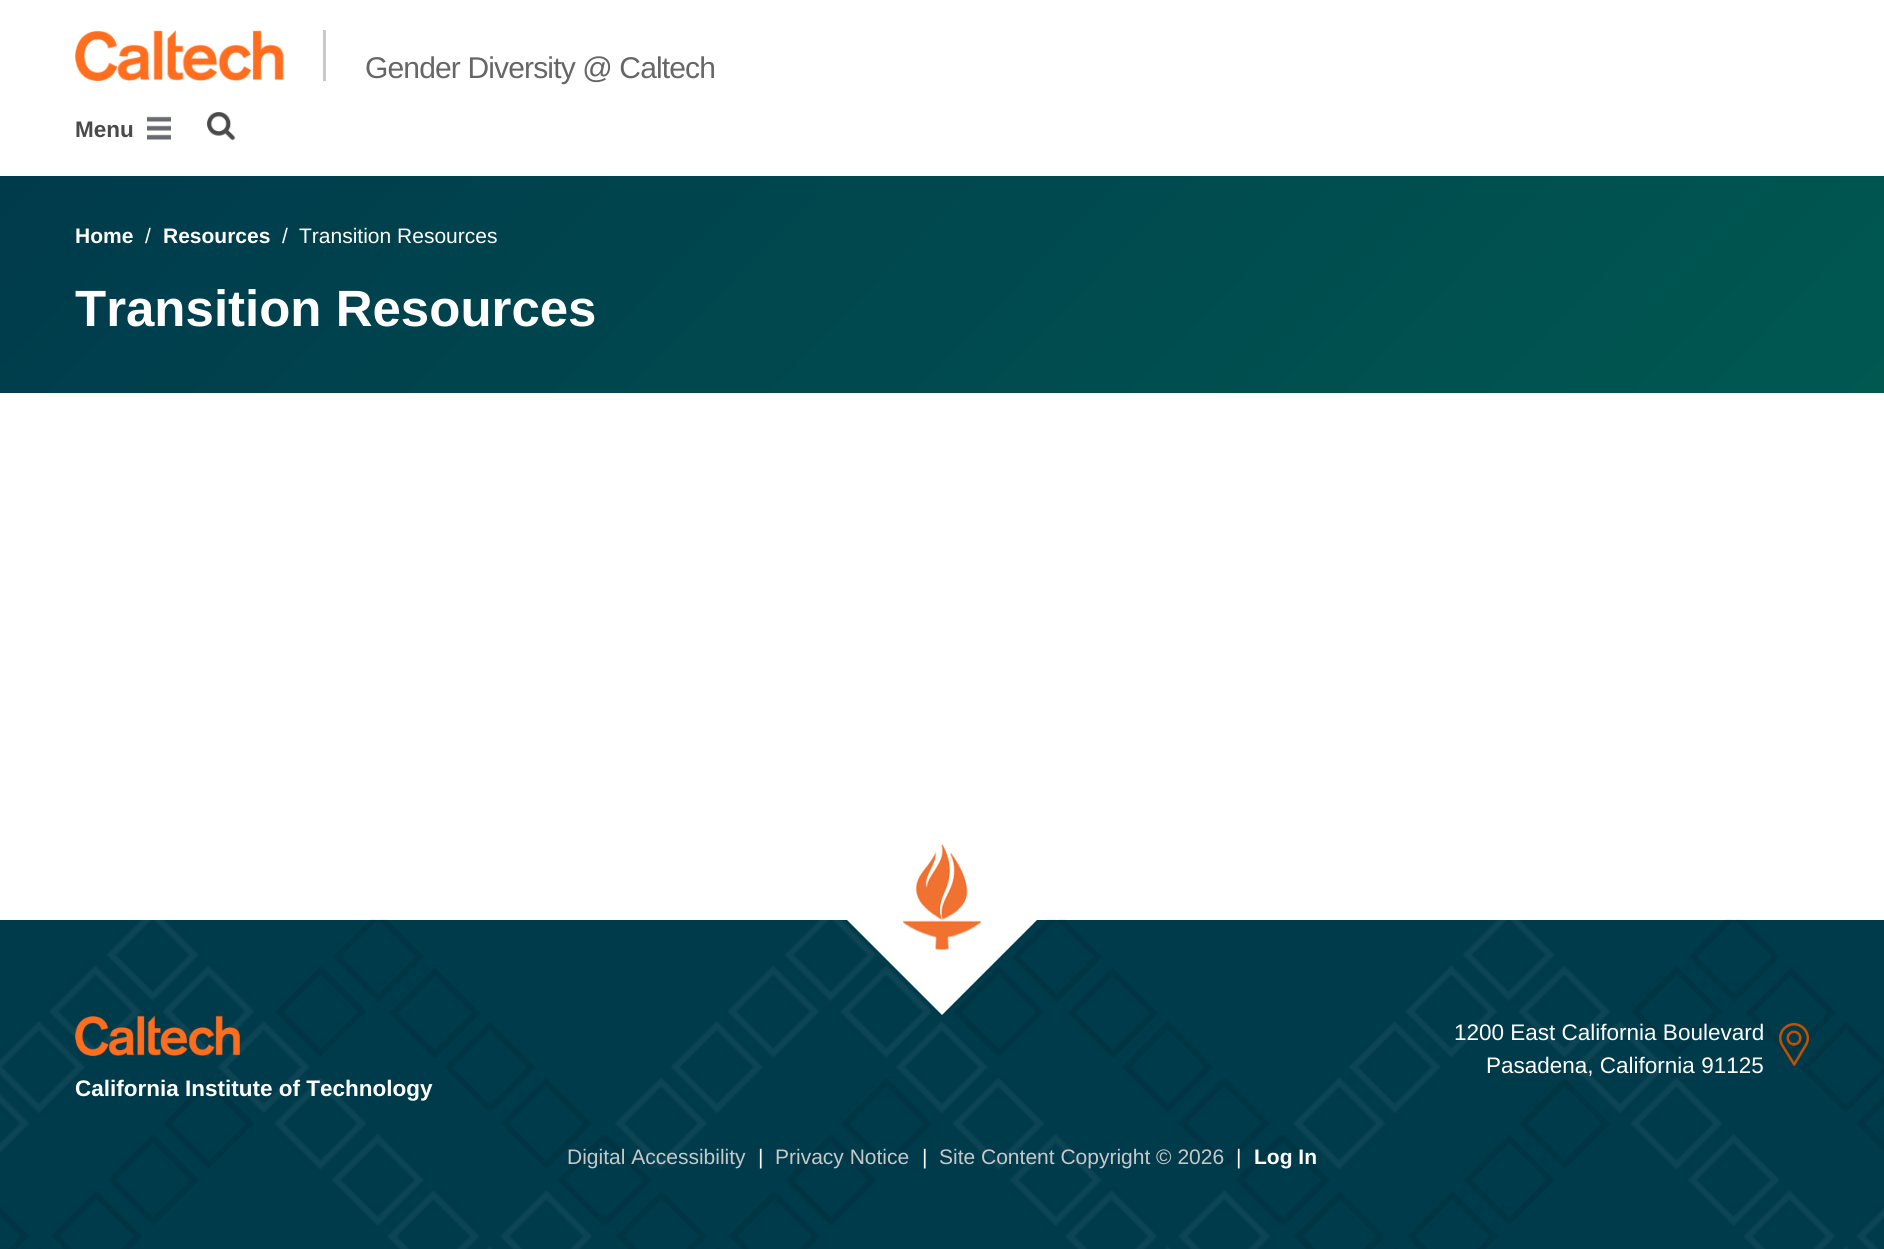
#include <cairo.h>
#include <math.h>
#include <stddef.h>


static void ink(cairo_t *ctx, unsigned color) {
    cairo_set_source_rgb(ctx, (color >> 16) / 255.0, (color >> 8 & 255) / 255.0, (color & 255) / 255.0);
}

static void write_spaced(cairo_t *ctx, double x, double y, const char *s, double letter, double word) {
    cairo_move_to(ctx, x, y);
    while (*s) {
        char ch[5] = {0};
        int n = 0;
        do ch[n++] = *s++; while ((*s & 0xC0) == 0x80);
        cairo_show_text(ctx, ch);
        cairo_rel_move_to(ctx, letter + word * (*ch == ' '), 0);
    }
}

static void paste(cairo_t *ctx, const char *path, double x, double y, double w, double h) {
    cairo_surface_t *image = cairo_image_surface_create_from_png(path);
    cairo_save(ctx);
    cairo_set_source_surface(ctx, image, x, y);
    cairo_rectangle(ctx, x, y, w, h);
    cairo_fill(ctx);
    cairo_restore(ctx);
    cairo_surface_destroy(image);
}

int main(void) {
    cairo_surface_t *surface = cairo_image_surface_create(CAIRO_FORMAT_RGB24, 1884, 1249);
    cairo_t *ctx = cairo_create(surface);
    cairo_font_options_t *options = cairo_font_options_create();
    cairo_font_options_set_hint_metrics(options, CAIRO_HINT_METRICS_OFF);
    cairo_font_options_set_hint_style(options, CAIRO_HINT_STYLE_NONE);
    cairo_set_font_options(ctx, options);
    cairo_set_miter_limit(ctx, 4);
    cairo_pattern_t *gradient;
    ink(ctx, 0xFFFFFF);
    cairo_paint(ctx);
    paste(ctx, "media/1.png", 75, 30, 209, 51);
    ink(ctx, 0xC8C8C8);
    cairo_rectangle(ctx, 323, 30, 3, 51);
    cairo_fill(ctx);
    cairo_select_font_face(ctx, "Liberation Sans", CAIRO_FONT_SLANT_NORMAL, CAIRO_FONT_WEIGHT_NORMAL);
    cairo_set_font_size(ctx, 30);
    ink(ctx, 0x666666);
    write_spaced(ctx, 365, 78, "Gender Diversity @ Caltech", -0.85, 0);
    cairo_select_font_face(ctx, "Liberation Sans", CAIRO_FONT_SLANT_NORMAL, CAIRO_FONT_WEIGHT_BOLD);
    cairo_set_font_size(ctx, 22.5);
    ink(ctx, 0x4A4A4A);
    cairo_move_to(ctx, 75, 137);
    cairo_show_text(ctx, "Menu");
    paste(ctx, "media/2.png", 147, 116, 24, 24);
    paste(ctx, "media/3.png", 207, 112, 29, 29);
    gradient = cairo_pattern_create_linear(400, -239, 1484, 807);
    cairo_pattern_add_color_stop_rgba(gradient, 0, 0, 0.231, 0.298, 1);
    cairo_pattern_add_color_stop_rgba(gradient, 1, 0, 0.345, 0.318, 1);
    cairo_set_source(ctx, gradient);
    cairo_pattern_destroy(gradient);
    cairo_rectangle(ctx, 0, 176, 1884, 217);
    cairo_fill(ctx);
    cairo_set_font_size(ctx, 21);
    ink(ctx, 0xFFFFFF);
    cairo_move_to(ctx, 75, 243);
    cairo_show_text(ctx, "Home");
    cairo_select_font_face(ctx, "Liberation Sans", CAIRO_FONT_SLANT_NORMAL, CAIRO_FONT_WEIGHT_NORMAL);
    cairo_move_to(ctx, 145, 243);
    cairo_show_text(ctx, "/");
    cairo_select_font_face(ctx, "Liberation Sans", CAIRO_FONT_SLANT_NORMAL, CAIRO_FONT_WEIGHT_BOLD);
    cairo_move_to(ctx, 163, 243);
    cairo_show_text(ctx, "Resources");
    cairo_select_font_face(ctx, "Liberation Sans", CAIRO_FONT_SLANT_NORMAL, CAIRO_FONT_WEIGHT_NORMAL);
    cairo_move_to(ctx, 282, 243);
    cairo_show_text(ctx, "/");
    cairo_move_to(ctx, 299, 243);
    cairo_show_text(ctx, "Transition Resources");
    cairo_select_font_face(ctx, "Liberation Sans", CAIRO_FONT_SLANT_NORMAL, CAIRO_FONT_WEIGHT_BOLD);
    cairo_set_font_size(ctx, 51);
    cairo_move_to(ctx, 75, 326);
    cairo_show_text(ctx, "Transition Resources");
    ink(ctx, 0x003B4C);
    cairo_rectangle(ctx, 0, 920, 1884, 329);
    cairo_fill(ctx);
    paste(ctx, "media/4.png", 0, 919, 1884, 330);
    ink(ctx, 0xFFFFFF);
    cairo_new_path(ctx);
    cairo_move_to(ctx, 942, 824);
    cairo_line_to(ctx, 1037, 920);
    cairo_line_to(ctx, 942, 1015);
    cairo_line_to(ctx, 847, 920);
    cairo_close_path(ctx);
    cairo_fill(ctx);
    paste(ctx, "media/5.png", 903, 844, 78, 106);
    cairo_select_font_face(ctx, "Liberation Sans", CAIRO_FONT_SLANT_NORMAL, CAIRO_FONT_WEIGHT_NORMAL);
    cairo_set_font_size(ctx, 22.5);
    cairo_move_to(ctx, 1454, 1040);
    cairo_show_text(ctx, "1200 East California Boulevard");
    paste(ctx, "media/6.png", 1779, 1023, 30, 44);
    cairo_move_to(ctx, 1486, 1073);
    cairo_show_text(ctx, "Pasadena, California 91125");
    paste(ctx, "media/7.png", 75, 1015, 165, 41);
    cairo_select_font_face(ctx, "Liberation Sans", CAIRO_FONT_SLANT_NORMAL, CAIRO_FONT_WEIGHT_BOLD);
    cairo_move_to(ctx, 75, 1096);
    cairo_show_text(ctx, "California Institute of Technology");
    cairo_select_font_face(ctx, "Liberation Sans", CAIRO_FONT_SLANT_NORMAL, CAIRO_FONT_WEIGHT_NORMAL);
    cairo_set_font_size(ctx, 21);
    ink(ctx, 0xC8C8C8);
    cairo_move_to(ctx, 567, 1164);
    cairo_show_text(ctx, "Digital Accessibility");
    ink(ctx, 0xFFFFFF);
    cairo_move_to(ctx, 758, 1164);
    cairo_show_text(ctx, "|");
    ink(ctx, 0xC8C8C8);
    cairo_move_to(ctx, 775, 1164);
    cairo_show_text(ctx, "Privacy Notice");
    ink(ctx, 0xFFFFFF);
    cairo_move_to(ctx, 922, 1164);
    cairo_show_text(ctx, "|");
    ink(ctx, 0xC8C8C8);
    cairo_move_to(ctx, 939, 1164);
    cairo_show_text(ctx, "Site Content Copyright © 2026");
    ink(ctx, 0xFFFFFF);
    cairo_move_to(ctx, 1236, 1164);
    cairo_show_text(ctx, "|");
    cairo_select_font_face(ctx, "Liberation Sans", CAIRO_FONT_SLANT_NORMAL, CAIRO_FONT_WEIGHT_BOLD);
    cairo_move_to(ctx, 1254, 1164);
    cairo_show_text(ctx, "Log In");
    cairo_surface_write_to_png(surface, "image.png");
    cairo_font_options_destroy(options);
    cairo_destroy(ctx);
    cairo_surface_destroy(surface);
    return 0;
}
